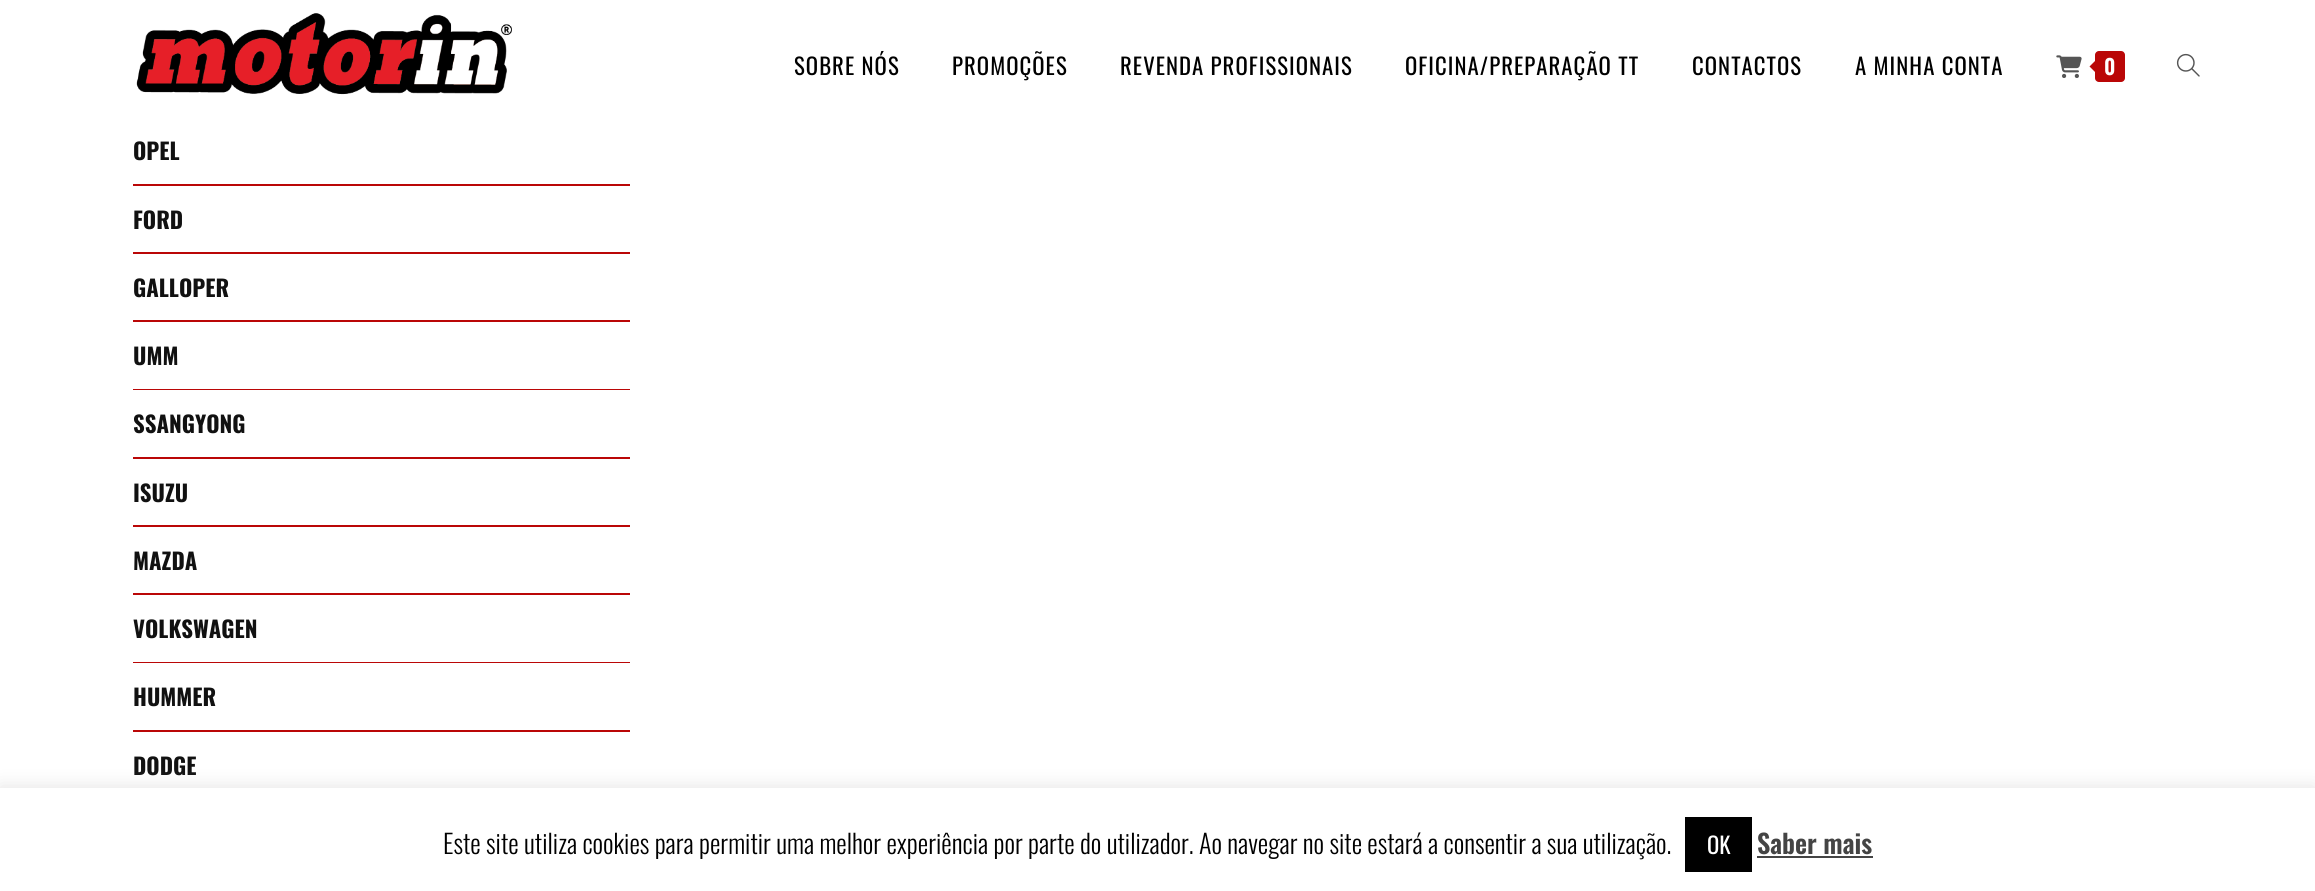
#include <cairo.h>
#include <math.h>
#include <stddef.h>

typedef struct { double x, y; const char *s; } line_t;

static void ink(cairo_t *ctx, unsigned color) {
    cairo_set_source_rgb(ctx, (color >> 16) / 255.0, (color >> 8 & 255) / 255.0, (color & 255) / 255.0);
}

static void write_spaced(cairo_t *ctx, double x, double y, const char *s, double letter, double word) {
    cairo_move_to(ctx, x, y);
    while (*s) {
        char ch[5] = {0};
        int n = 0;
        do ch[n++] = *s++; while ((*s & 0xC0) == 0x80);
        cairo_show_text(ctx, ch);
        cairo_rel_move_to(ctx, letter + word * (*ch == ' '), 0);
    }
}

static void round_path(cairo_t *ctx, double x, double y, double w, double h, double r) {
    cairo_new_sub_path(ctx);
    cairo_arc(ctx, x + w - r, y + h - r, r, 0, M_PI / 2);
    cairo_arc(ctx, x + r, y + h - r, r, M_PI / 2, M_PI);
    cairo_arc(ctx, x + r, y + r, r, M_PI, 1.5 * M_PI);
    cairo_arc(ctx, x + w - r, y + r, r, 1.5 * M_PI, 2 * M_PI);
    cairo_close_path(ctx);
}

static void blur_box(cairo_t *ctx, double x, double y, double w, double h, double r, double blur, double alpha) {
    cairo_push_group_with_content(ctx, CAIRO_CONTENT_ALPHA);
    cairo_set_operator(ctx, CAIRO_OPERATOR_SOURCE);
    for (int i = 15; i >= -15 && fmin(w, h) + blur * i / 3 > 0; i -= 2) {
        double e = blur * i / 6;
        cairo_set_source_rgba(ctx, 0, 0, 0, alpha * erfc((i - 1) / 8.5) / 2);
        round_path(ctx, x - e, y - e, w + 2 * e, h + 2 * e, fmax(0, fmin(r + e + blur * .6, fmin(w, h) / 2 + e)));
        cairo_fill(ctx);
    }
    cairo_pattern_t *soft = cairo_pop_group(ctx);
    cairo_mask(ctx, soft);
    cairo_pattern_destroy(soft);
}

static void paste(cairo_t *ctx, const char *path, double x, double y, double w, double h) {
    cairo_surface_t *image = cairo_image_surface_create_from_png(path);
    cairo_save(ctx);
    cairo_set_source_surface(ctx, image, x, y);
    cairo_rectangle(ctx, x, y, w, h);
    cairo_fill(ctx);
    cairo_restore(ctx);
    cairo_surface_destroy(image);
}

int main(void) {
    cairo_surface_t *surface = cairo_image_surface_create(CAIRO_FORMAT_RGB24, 2315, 891);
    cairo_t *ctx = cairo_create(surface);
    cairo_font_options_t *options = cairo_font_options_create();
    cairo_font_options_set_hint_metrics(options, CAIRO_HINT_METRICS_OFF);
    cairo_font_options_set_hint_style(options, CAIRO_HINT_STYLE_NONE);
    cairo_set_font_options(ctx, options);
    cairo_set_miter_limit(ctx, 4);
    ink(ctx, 0xFFFFFF);
    cairo_paint(ctx);
    paste(ctx, "media/1.png", 136, 13, 376, 82);
    cairo_select_font_face(ctx, "Oswald", CAIRO_FONT_SLANT_NORMAL, CAIRO_FONT_WEIGHT_NORMAL);
    cairo_set_font_size(ctx, 22.75);
    ink(ctx, 0x000000);
    {
        static const line_t items[] = {
            {794, 75, "SOBRE NÓS"},
            {952, 75, "PROMOÇÕES"},
            {1120, 75, "REVENDA PROFISSIONAIS"},
            {1405, 75, "OFICINA/PREPARAÇÃO TT"},
            {1692, 75, "CONTACTOS"},
            {1855, 75, "A MINHA CONTA"},
        };
        for (size_t i = 0; i < sizeof items / sizeof *items; i++) {
            write_spaced(ctx, items[i].x, items[i].y, items[i].s, 1.05, 0);
        }
    }
    paste(ctx, "media/2.png", 2056, 55, 26, 23);
    ink(ctx, 0xBA0707);
    round_path(ctx, 2095, 51, 30, 31, 4);
    cairo_fill(ctx);
    cairo_new_path(ctx);
    cairo_move_to(ctx, 2098, 58);
    cairo_line_to(ctx, 2098, 75);
    cairo_line_to(ctx, 2089.5, 66.5);
    cairo_close_path(ctx);
    cairo_fill(ctx);
    cairo_select_font_face(ctx, "Oswald SemiBold", CAIRO_FONT_SLANT_NORMAL, CAIRO_FONT_WEIGHT_NORMAL);
    cairo_set_font_size(ctx, 21);
    ink(ctx, 0xFFFFFF);
    cairo_move_to(ctx, 2104, 75);
    cairo_show_text(ctx, "0");
    paste(ctx, "media/3.png", 2176, 53, 24, 24);
    ink(ctx, 0xBA0707);
    cairo_rectangle(ctx, 133, 184, 497, 2);
    cairo_fill(ctx);
    cairo_select_font_face(ctx, "Oswald", CAIRO_FONT_SLANT_NORMAL, CAIRO_FONT_WEIGHT_BOLD);
    cairo_set_font_size(ctx, 22.75);
    ink(ctx, 0x111111);
    cairo_move_to(ctx, 133, 160);
    cairo_show_text(ctx, "OPEL");
    ink(ctx, 0xBA0707);
    cairo_rectangle(ctx, 133, 252, 497, 2);
    cairo_fill(ctx);
    ink(ctx, 0x111111);
    cairo_move_to(ctx, 133, 229);
    cairo_show_text(ctx, "FORD");
    ink(ctx, 0xBA0707);
    cairo_rectangle(ctx, 133, 320, 497, 2);
    cairo_fill(ctx);
    ink(ctx, 0x111111);
    cairo_move_to(ctx, 133, 297);
    cairo_show_text(ctx, "GALLOPER");
    ink(ctx, 0xBA0707);
    cairo_rectangle(ctx, 133, 389, 497, 1);
    cairo_fill(ctx);
    ink(ctx, 0x111111);
    cairo_move_to(ctx, 133, 365);
    cairo_show_text(ctx, "UMM");
    ink(ctx, 0xBA0707);
    cairo_rectangle(ctx, 133, 457, 497, 2);
    cairo_fill(ctx);
    ink(ctx, 0x111111);
    cairo_move_to(ctx, 133, 433);
    cairo_show_text(ctx, "SSANGYONG");
    ink(ctx, 0xBA0707);
    cairo_rectangle(ctx, 133, 525, 497, 2);
    cairo_fill(ctx);
    ink(ctx, 0x111111);
    cairo_move_to(ctx, 133, 502);
    cairo_show_text(ctx, "ISUZU");
    ink(ctx, 0xBA0707);
    cairo_rectangle(ctx, 133, 593, 497, 2);
    cairo_fill(ctx);
    ink(ctx, 0x111111);
    cairo_move_to(ctx, 133, 570);
    cairo_show_text(ctx, "MAZDA");
    ink(ctx, 0xBA0707);
    cairo_rectangle(ctx, 133, 662, 497, 1);
    cairo_fill(ctx);
    ink(ctx, 0x111111);
    cairo_move_to(ctx, 133, 638);
    cairo_show_text(ctx, "VOLKSWAGEN");
    ink(ctx, 0xBA0707);
    cairo_rectangle(ctx, 133, 730, 497, 2);
    cairo_fill(ctx);
    ink(ctx, 0x111111);
    cairo_move_to(ctx, 133, 706);
    cairo_show_text(ctx, "HUMMER");
    cairo_move_to(ctx, 133, 775);
    cairo_show_text(ctx, "DODGE");
    ink(ctx, 0xACABAB);
    blur_box(ctx, 0, 786, 2315, 105, 0, 9, 0.3);
    ink(ctx, 0xFFFFFF);
    cairo_rectangle(ctx, 0, 788, 2315, 103);
    cairo_fill(ctx);
    cairo_select_font_face(ctx, "Oswald Light", CAIRO_FONT_SLANT_NORMAL, CAIRO_FONT_WEIGHT_NORMAL);
    cairo_set_font_size(ctx, 26.25);
    ink(ctx, 0x000000);
    cairo_move_to(ctx, 443, 854);
    cairo_show_text(ctx, "Este site utiliza cookies para permitir uma melhor experiência por parte do utilizador. Ao navegar no site estará a consentir a sua utilização.");
    cairo_rectangle(ctx, 1685, 817, 67, 55);
    cairo_fill(ctx);
    cairo_select_font_face(ctx, "Oswald", CAIRO_FONT_SLANT_NORMAL, CAIRO_FONT_WEIGHT_NORMAL);
    cairo_set_font_size(ctx, 22.75);
    ink(ctx, 0xFFFFFF);
    cairo_move_to(ctx, 1707, 854);
    cairo_show_text(ctx, "OK");
    cairo_select_font_face(ctx, "Oswald SemiBold", CAIRO_FONT_SLANT_NORMAL, CAIRO_FONT_WEIGHT_NORMAL);
    cairo_set_font_size(ctx, 26.25);
    ink(ctx, 0x444444);
    cairo_move_to(ctx, 1757, 854);
    cairo_show_text(ctx, "Saber mais");
    cairo_rectangle(ctx, 1757, 856, 116, 2);
    cairo_fill(ctx);
    cairo_surface_write_to_png(surface, "image.png");
    cairo_font_options_destroy(options);
    cairo_destroy(ctx);
    cairo_surface_destroy(surface);
    return 0;
}
